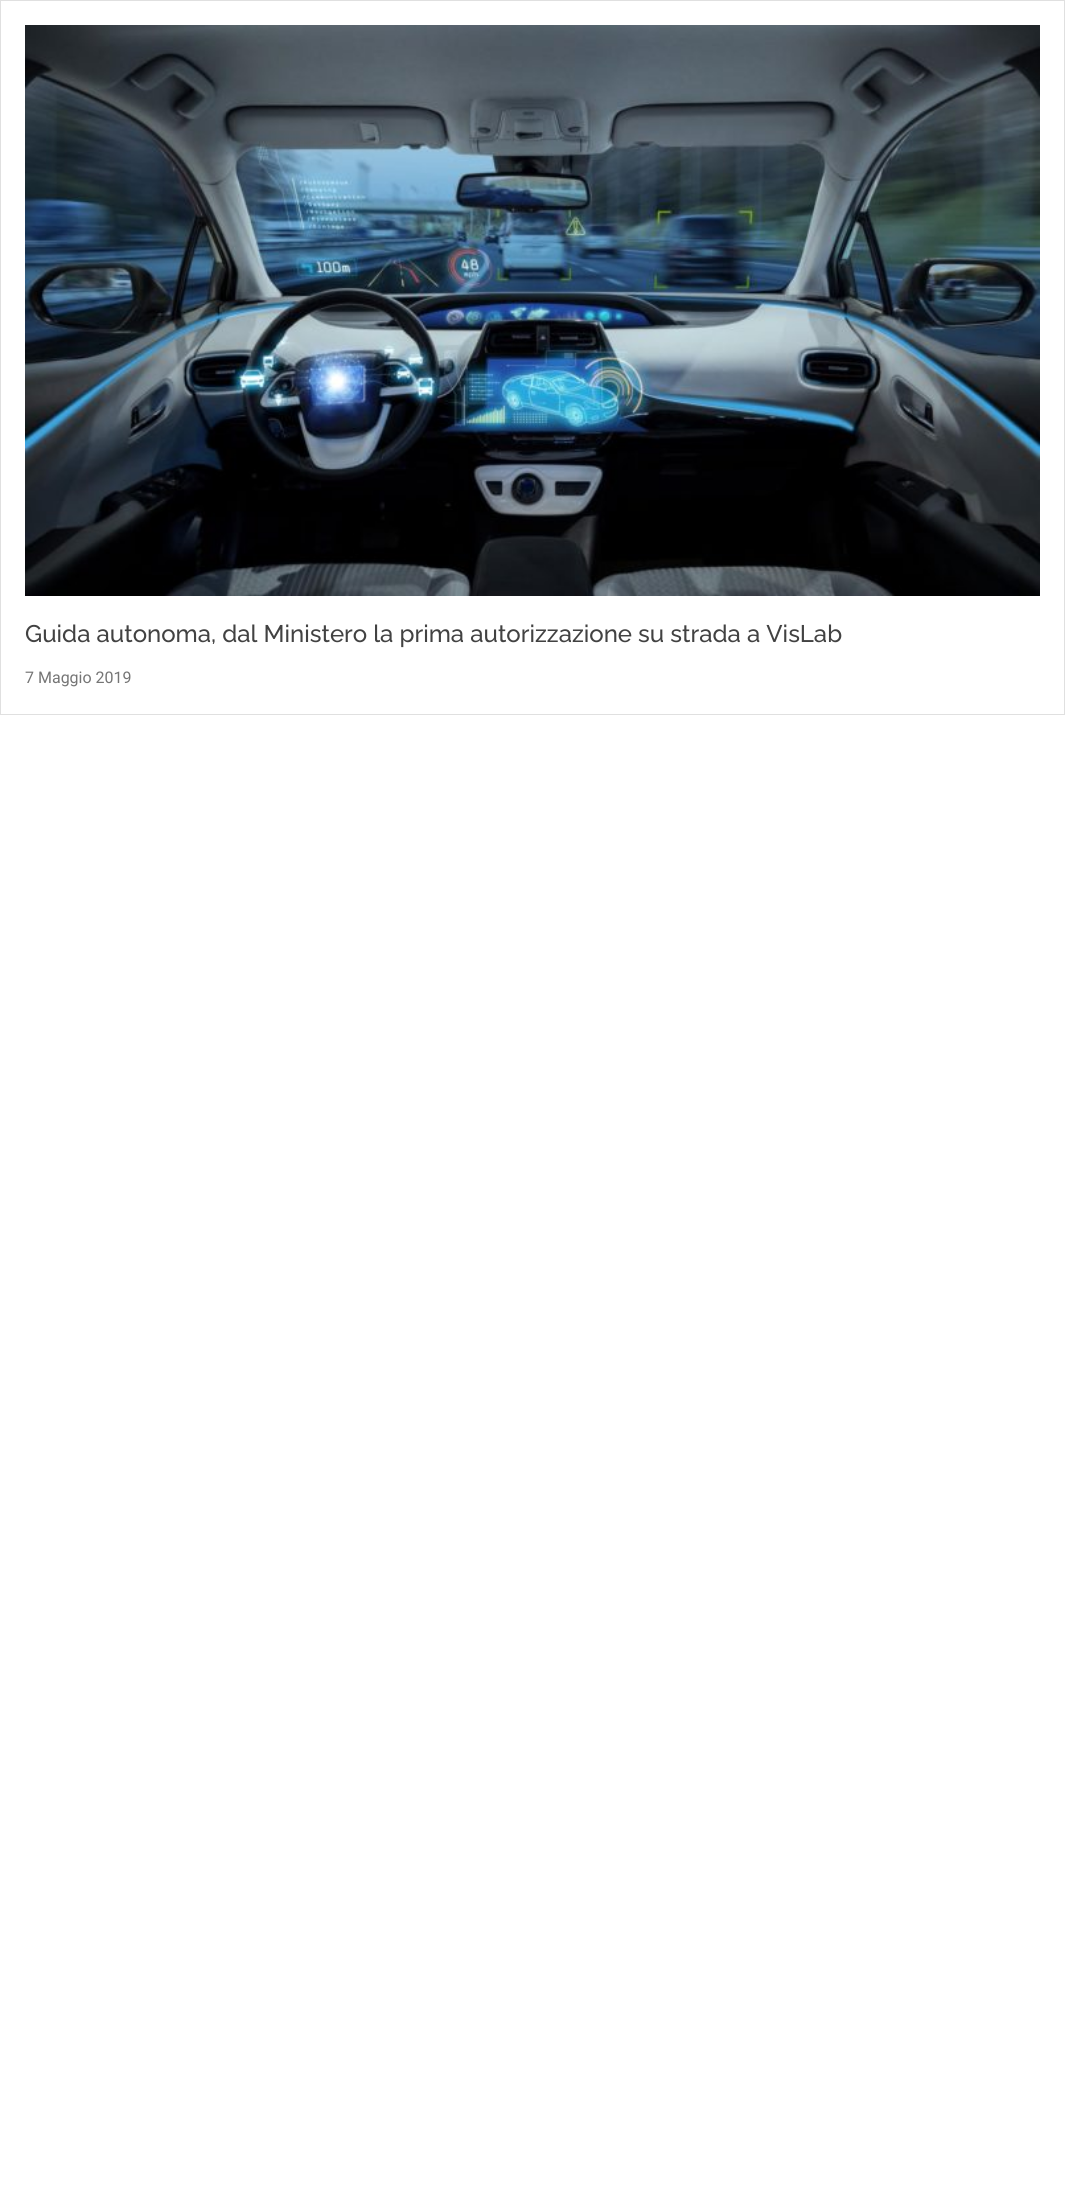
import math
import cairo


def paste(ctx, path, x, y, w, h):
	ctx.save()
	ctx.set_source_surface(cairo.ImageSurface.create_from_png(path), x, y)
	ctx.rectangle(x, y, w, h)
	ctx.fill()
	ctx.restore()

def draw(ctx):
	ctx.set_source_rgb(1, 1, 1)
	ctx.paint()
	ctx.rectangle(0.5, 0.5, 1064, 714)
	ctx.set_source_rgb(0.878, 0.878, 0.878)
	ctx.set_line_width(1)
	ctx.stroke()
	paste(ctx, 'media/1.png', 25, 25, 1015, 571)
	ctx.select_font_face('Raleway Medium')
	ctx.set_font_size(24)
	ctx.set_source_rgb(0.259, 0.259, 0.259)
	ctx.move_to(25, 642)
	ctx.show_text('Guida autonoma, dal Ministero la prima autorizzazione su strada a VisLab')
	ctx.select_font_face('Roboto')
	ctx.set_font_size(16)
	ctx.set_source_rgb(0.459, 0.459, 0.459)
	ctx.move_to(25, 683)
	ctx.show_text('7 Maggio 2019')


surface = cairo.ImageSurface(cairo.FORMAT_RGB24, 1065, 2193)
ctx = cairo.Context(surface)
options = cairo.FontOptions()
options.set_hint_metrics(cairo.HINT_METRICS_OFF)
options.set_hint_style(cairo.HINT_STYLE_NONE)
ctx.set_font_options(options)
ctx.set_miter_limit(4)
draw(ctx)
surface.write_to_png('image.png')
